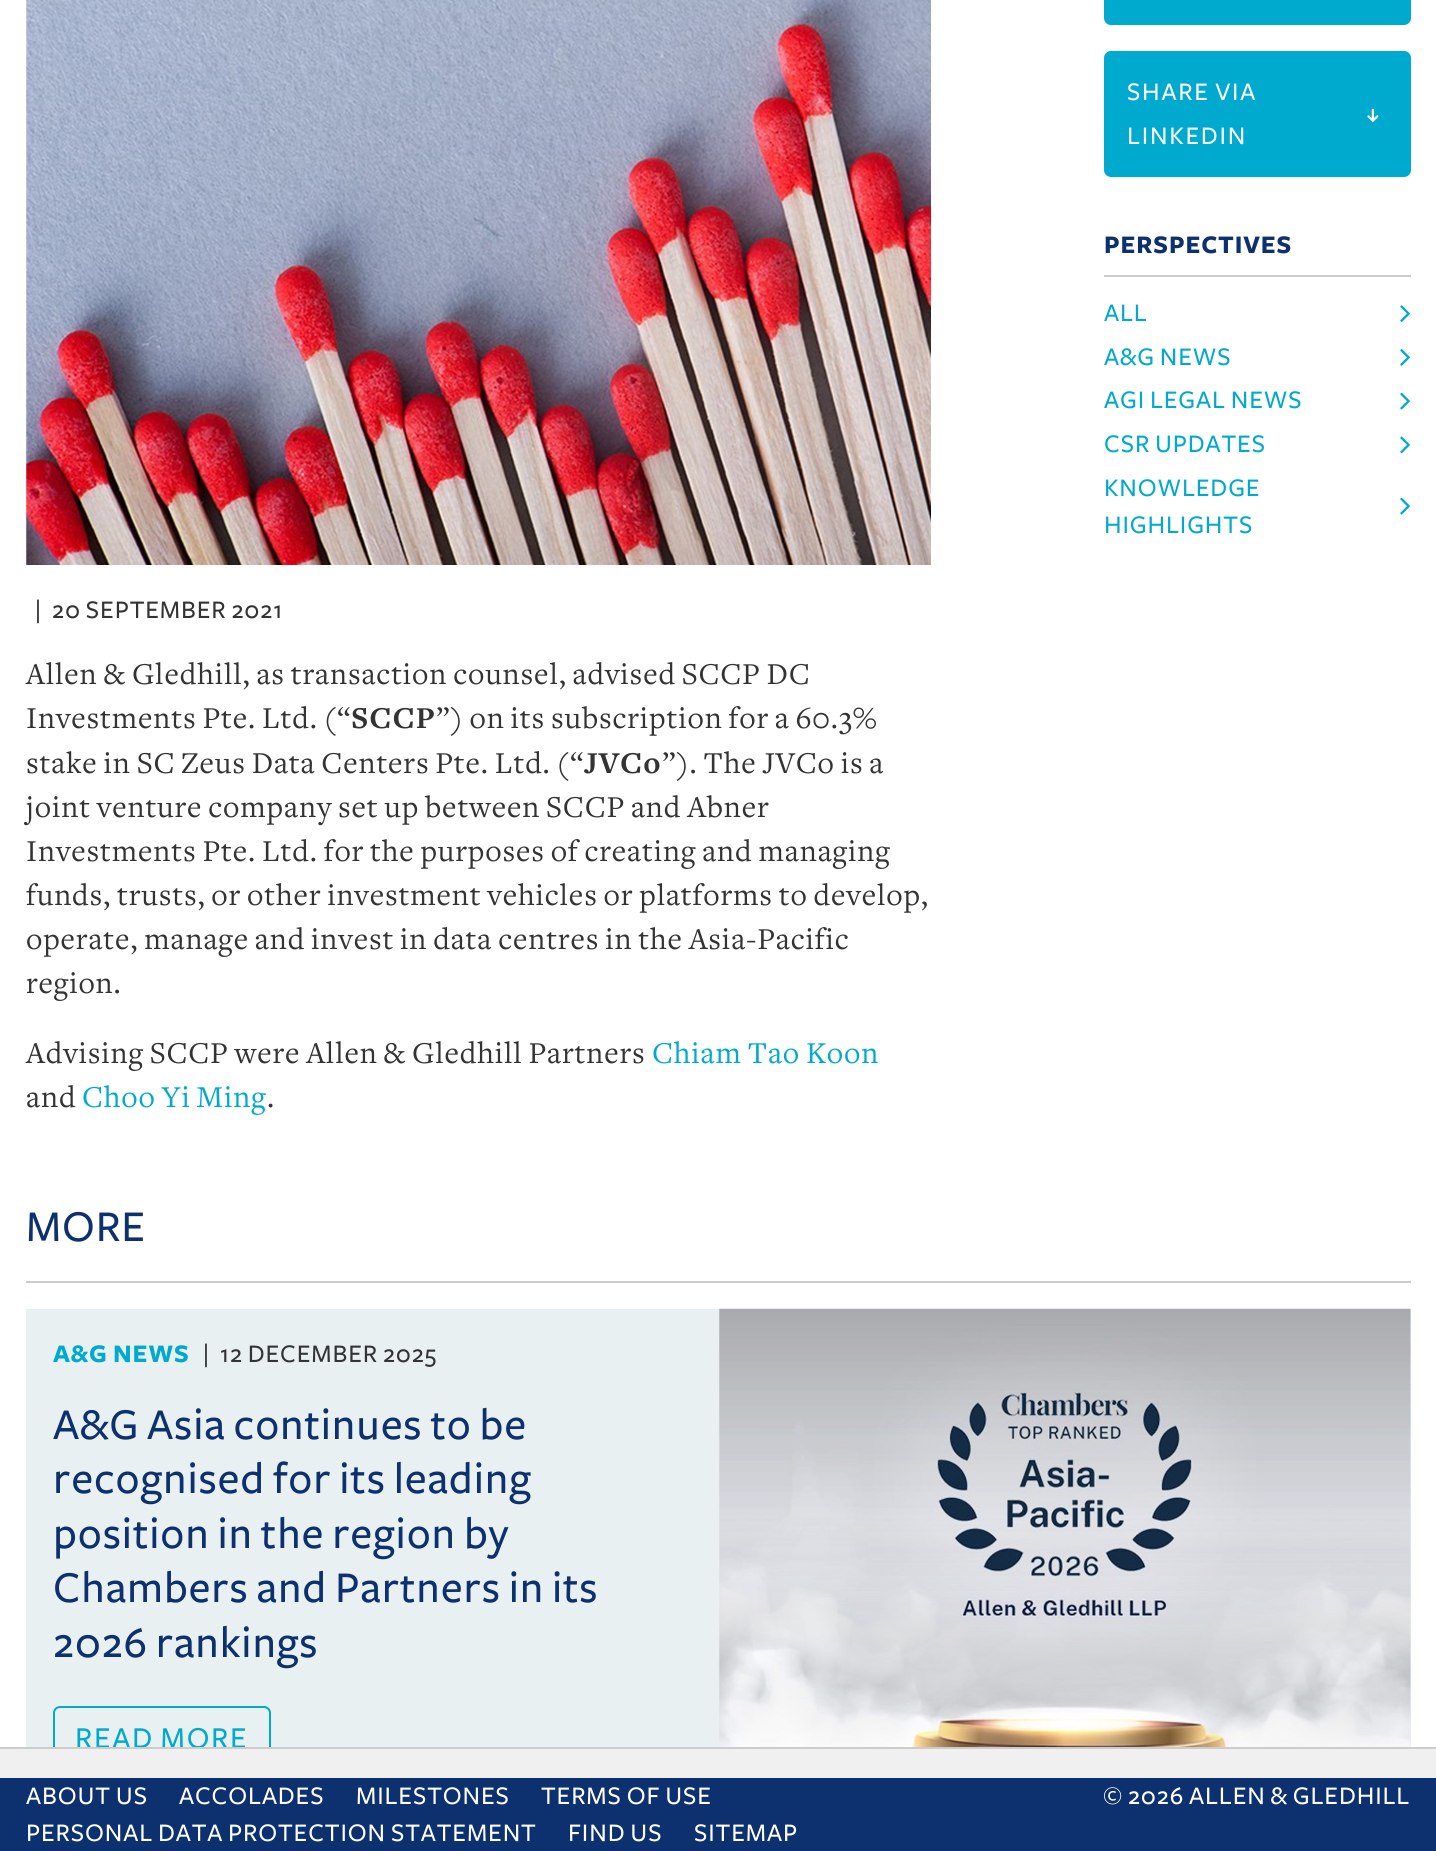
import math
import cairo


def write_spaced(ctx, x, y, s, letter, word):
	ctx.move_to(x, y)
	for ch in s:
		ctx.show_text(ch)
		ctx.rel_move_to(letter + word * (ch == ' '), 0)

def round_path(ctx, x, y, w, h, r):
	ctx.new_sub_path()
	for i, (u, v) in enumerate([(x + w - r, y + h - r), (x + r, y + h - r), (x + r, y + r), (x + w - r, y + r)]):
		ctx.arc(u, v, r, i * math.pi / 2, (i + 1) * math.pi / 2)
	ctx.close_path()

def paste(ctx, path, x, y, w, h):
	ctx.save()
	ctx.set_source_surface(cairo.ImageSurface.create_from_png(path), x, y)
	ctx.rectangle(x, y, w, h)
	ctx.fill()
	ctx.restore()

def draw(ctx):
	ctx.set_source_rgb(1, 1, 1)
	ctx.paint()
	ctx.set_source_rgb(0, 0.663, 0.808)
	round_path(ctx, 1105, -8, 305, 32, 6)
	ctx.fill_preserve()
	ctx.stroke()
	round_path(ctx, 1105, 52, 305, 124, 6)
	ctx.fill_preserve()
	ctx.stroke()
	ctx.select_font_face('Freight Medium')
	ctx.set_font_size(26.25)
	ctx.set_source_rgb(1, 1, 1)
	write_spaced(ctx, 1127, 100, 'SHARE VIA', 1.75, 0)
	paste(ctx, 'media/1.png', 1367, 108, 12, 15)
	write_spaced(ctx, 1127, 144, 'LINKEDIN', 1.75, 0)
	ctx.set_source_rgb(0.8, 0.8, 0.8)
	ctx.rectangle(1104, 275, 307, 2)
	ctx.fill()
	ctx.select_font_face('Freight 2', cairo.FONT_SLANT_NORMAL, cairo.FONT_WEIGHT_BOLD)
	ctx.set_source_rgb(0.051, 0.192, 0.431)
	write_spaced(ctx, 1104, 253, 'PERSPECTIVES', 0.88, 0)
	ctx.select_font_face('Freight Medium')
	ctx.set_source_rgb(0, 0.663, 0.808)
	write_spaced(ctx, 1104, 321, 'ALL', 0.88, 0)
	paste(ctx, 'media/2.png', 1400, 305, 10, 17)
	write_spaced(ctx, 1104, 365, 'A&G NEWS', 0.88, 0)
	paste(ctx, 'media/3.png', 1400, 349, 10, 17)
	write_spaced(ctx, 1104, 408, 'AGI LEGAL NEWS', 0.88, 0)
	paste(ctx, 'media/4.png', 1400, 392, 10, 18)
	write_spaced(ctx, 1104, 452, 'CSR UPDATES', 0.88, 0)
	paste(ctx, 'media/5.png', 1400, 436, 10, 18)
	write_spaced(ctx, 1104, 496, 'KNOWLEDGE', 0.88, 0)
	paste(ctx, 'media/4.png', 1400, 497, 10, 18)
	write_spaced(ctx, 1104, 533, 'HIGHLIGHTS', 0.88, 0)
	paste(ctx, 'media/6.png', 26, 0, 905, 565)
	ctx.set_source_rgb(0.2, 0.2, 0.2)
	write_spaced(ctx, 35, 618, '|', 0.88, 0)
	write_spaced(ctx, 52, 618, '20 SEPTEMBER 2021', 0.88, 0)
	ctx.select_font_face('Freight')
	ctx.set_font_size(31.5)
	write_spaced(ctx, 26, 684, 'Allen & Gledhill, as transaction counsel, advised SCCP DC', 0.88, 0)
	write_spaced(ctx, 26, 728, 'Investments Pte. Ltd. (“', 0.88, 0)
	ctx.select_font_face('Freight', cairo.FONT_SLANT_NORMAL, cairo.FONT_WEIGHT_BOLD)
	write_spaced(ctx, 351, 728, 'SCCP', 0.88, 0)
	ctx.select_font_face('Freight')
	write_spaced(ctx, 436, 728, '”) on its subscription for a 60.3%', 0.88, 0)
	write_spaced(ctx, 26, 773, 'stake in SC Zeus Data Centers Pte. Ltd. (“', 0.88, 0)
	ctx.select_font_face('Freight', cairo.FONT_SLANT_NORMAL, cairo.FONT_WEIGHT_BOLD)
	write_spaced(ctx, 584, 773, 'JVCo', 0.88, 0)
	ctx.select_font_face('Freight')
	for x, y, s in [
		(662, 773, '”). The JVCo is a'),
		(26, 817, 'joint venture company set up between SCCP and Abner'),
		(26, 861, 'Investments Pte. Ltd. for the purposes of creating and managing'),
		(26, 905, 'funds, trusts, or other investment vehicles or platforms to develop,'),
		(26, 949, 'operate, manage and invest in data centres in the Asia-Pacific'),
		(26, 993, 'region.'),
		(26, 1063, 'Advising SCCP were Allen & Gledhill Partners'),
	]:
		write_spaced(ctx, x, y, s, 0.88, 0)
	ctx.set_source_rgb(0, 0.663, 0.808)
	write_spaced(ctx, 652, 1063, 'Chiam Tao Koon', 0.88, 0)
	ctx.set_source_rgb(0.2, 0.2, 0.2)
	write_spaced(ctx, 26, 1107, 'and', 0.88, 0)
	ctx.set_source_rgb(0, 0.663, 0.808)
	write_spaced(ctx, 82, 1107, 'Choo Yi Ming', 0.88, 0)
	ctx.set_source_rgb(0.2, 0.2, 0.2)
	write_spaced(ctx, 267, 1107, '.', 0.88, 0)
	ctx.set_source_rgb(0.8, 0.8, 0.8)
	ctx.rectangle(26, 1281, 1385, 2)
	ctx.fill()
	ctx.select_font_face('Freight Medium')
	ctx.set_font_size(45.5)
	ctx.set_source_rgb(0.051, 0.192, 0.431)
	write_spaced(ctx, 26, 1241, 'MORE', 0.88, 0)
	ctx.set_source_rgb(0.914, 0.941, 0.949)
	ctx.rectangle(26, 1309, 1385, 438)
	ctx.fill()
	ctx.select_font_face('Freight 2', cairo.FONT_SLANT_NORMAL, cairo.FONT_WEIGHT_BOLD)
	ctx.set_font_size(26.25)
	ctx.set_source_rgb(0, 0.663, 0.808)
	write_spaced(ctx, 53, 1362, 'A&G NEWS', 0.88, 0)
	ctx.select_font_face('Freight Medium')
	ctx.set_source_rgb(0.2, 0.2, 0.2)
	write_spaced(ctx, 203, 1362, '|', 0.88, 0)
	write_spaced(ctx, 220, 1362, '12 DECEMBER 2025', 0.88, 0)
	ctx.set_font_size(45.5)
	ctx.set_source_rgb(0.051, 0.192, 0.431)
	for x, y, s in [
		(53, 1439, 'A&G Asia continues to be'),
		(53, 1493, 'recognised for its leading'),
		(53, 1548, 'position in the region by'),
		(53, 1602, 'Chambers and Partners in its'),
		(53, 1657, '2026 rankings'),
	]:
		write_spaced(ctx, x, y, s, 0.88, 0)
	round_path(ctx, 54, 1707, 216, 67, 6)
	ctx.set_source_rgb(0, 0.663, 0.808)
	ctx.stroke()
	ctx.set_font_size(31.5)
	write_spaced(ctx, 75, 1748, 'READ MORE', 1.75, 0)
	paste(ctx, 'media/7.png', 719, 1308, 692, 439)
	ctx.set_source_rgb(0.051, 0.192, 0.431)
	ctx.rectangle(0, 1778, 1436, 73)
	ctx.fill()
	ctx.set_font_size(26.25)
	ctx.set_source_rgb(1, 1, 1)
	for x, y, s in [
		(26, 1804, 'ABOUT US'),
		(179, 1804, 'ACCOLADES'),
		(356, 1804, 'MILESTONES'),
		(541, 1804, 'TERMS OF USE'),
		(26, 1841, 'PERSONAL DATA PROTECTION STATEMENT'),
		(568, 1841, 'FIND US'),
		(694, 1841, 'SITEMAP'),
		(1103, 1804, '© 2026 ALLEN & GLEDHILL'),
	]:
		write_spaced(ctx, x, y, s, 0.88, 0)
	ctx.set_source_rgb(0.941, 0.941, 0.941)
	ctx.rectangle(0, 1749, 1436, 29)
	ctx.fill()
	ctx.set_source_rgb(0.8, 0.8, 0.8)
	ctx.rectangle(0, 1747, 1436, 2)
	ctx.fill()


surface = cairo.ImageSurface(cairo.FORMAT_RGB24, 1436, 1851)
ctx = cairo.Context(surface)
options = cairo.FontOptions()
options.set_hint_metrics(cairo.HINT_METRICS_OFF)
options.set_hint_style(cairo.HINT_STYLE_NONE)
ctx.set_font_options(options)
ctx.set_miter_limit(4)
draw(ctx)
surface.write_to_png('image.png')
